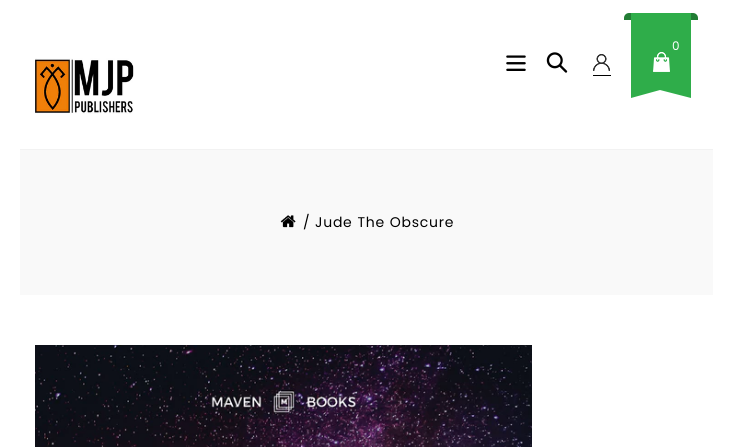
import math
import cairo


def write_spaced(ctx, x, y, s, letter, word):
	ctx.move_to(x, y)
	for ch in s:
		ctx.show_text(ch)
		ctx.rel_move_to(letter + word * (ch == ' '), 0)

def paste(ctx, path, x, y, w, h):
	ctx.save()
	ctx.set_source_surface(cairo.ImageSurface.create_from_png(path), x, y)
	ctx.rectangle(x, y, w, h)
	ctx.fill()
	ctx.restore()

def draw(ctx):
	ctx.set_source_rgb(1, 1, 1)
	ctx.paint()
	ctx.set_source_rgb(0.949, 0.949, 0.949)
	ctx.rectangle(20, 149, 693, 1)
	ctx.fill()
	paste(ctx, 'media/1.png', 624, 13, 74, 85)
	ctx.select_font_face('Poppins')
	ctx.set_font_size(12)
	ctx.set_source_rgb(1, 1, 1)
	write_spaced(ctx, 672, 50, '0', 0.75, 0)
	paste(ctx, 'media/2.png', 653, 52, 17, 20)
	paste(ctx, 'media/3.png', 506, 55, 20, 16)
	paste(ctx, 'media/4.png', 546, 52, 22, 21)
	paste(ctx, 'media/5.png', 593, 54, 17, 17)
	ctx.set_source_rgb(0, 0, 0)
	ctx.rectangle(593, 75, 18, 1)
	ctx.fill()
	paste(ctx, 'media/6.png', 35, 58, 99, 56)
	ctx.set_source_rgb(0.973, 0.973, 0.973)
	ctx.rectangle(20, 150, 693, 145)
	ctx.fill()
	paste(ctx, 'media/7.png', 280, 215, 16, 13)
	ctx.set_font_size(14)
	ctx.set_source_rgb(0, 0, 0)
	write_spaced(ctx, 303, 227, '/', 0.75, 0)
	write_spaced(ctx, 315, 227, 'Jude The Obscure', 0.75, 0)
	paste(ctx, 'media/8.png', 35, 345, 497, 102)


surface = cairo.ImageSurface(cairo.FORMAT_RGB24, 733, 447)
ctx = cairo.Context(surface)
options = cairo.FontOptions()
options.set_hint_metrics(cairo.HINT_METRICS_OFF)
options.set_hint_style(cairo.HINT_STYLE_NONE)
ctx.set_font_options(options)
ctx.set_miter_limit(4)
draw(ctx)
surface.write_to_png('image.png')
